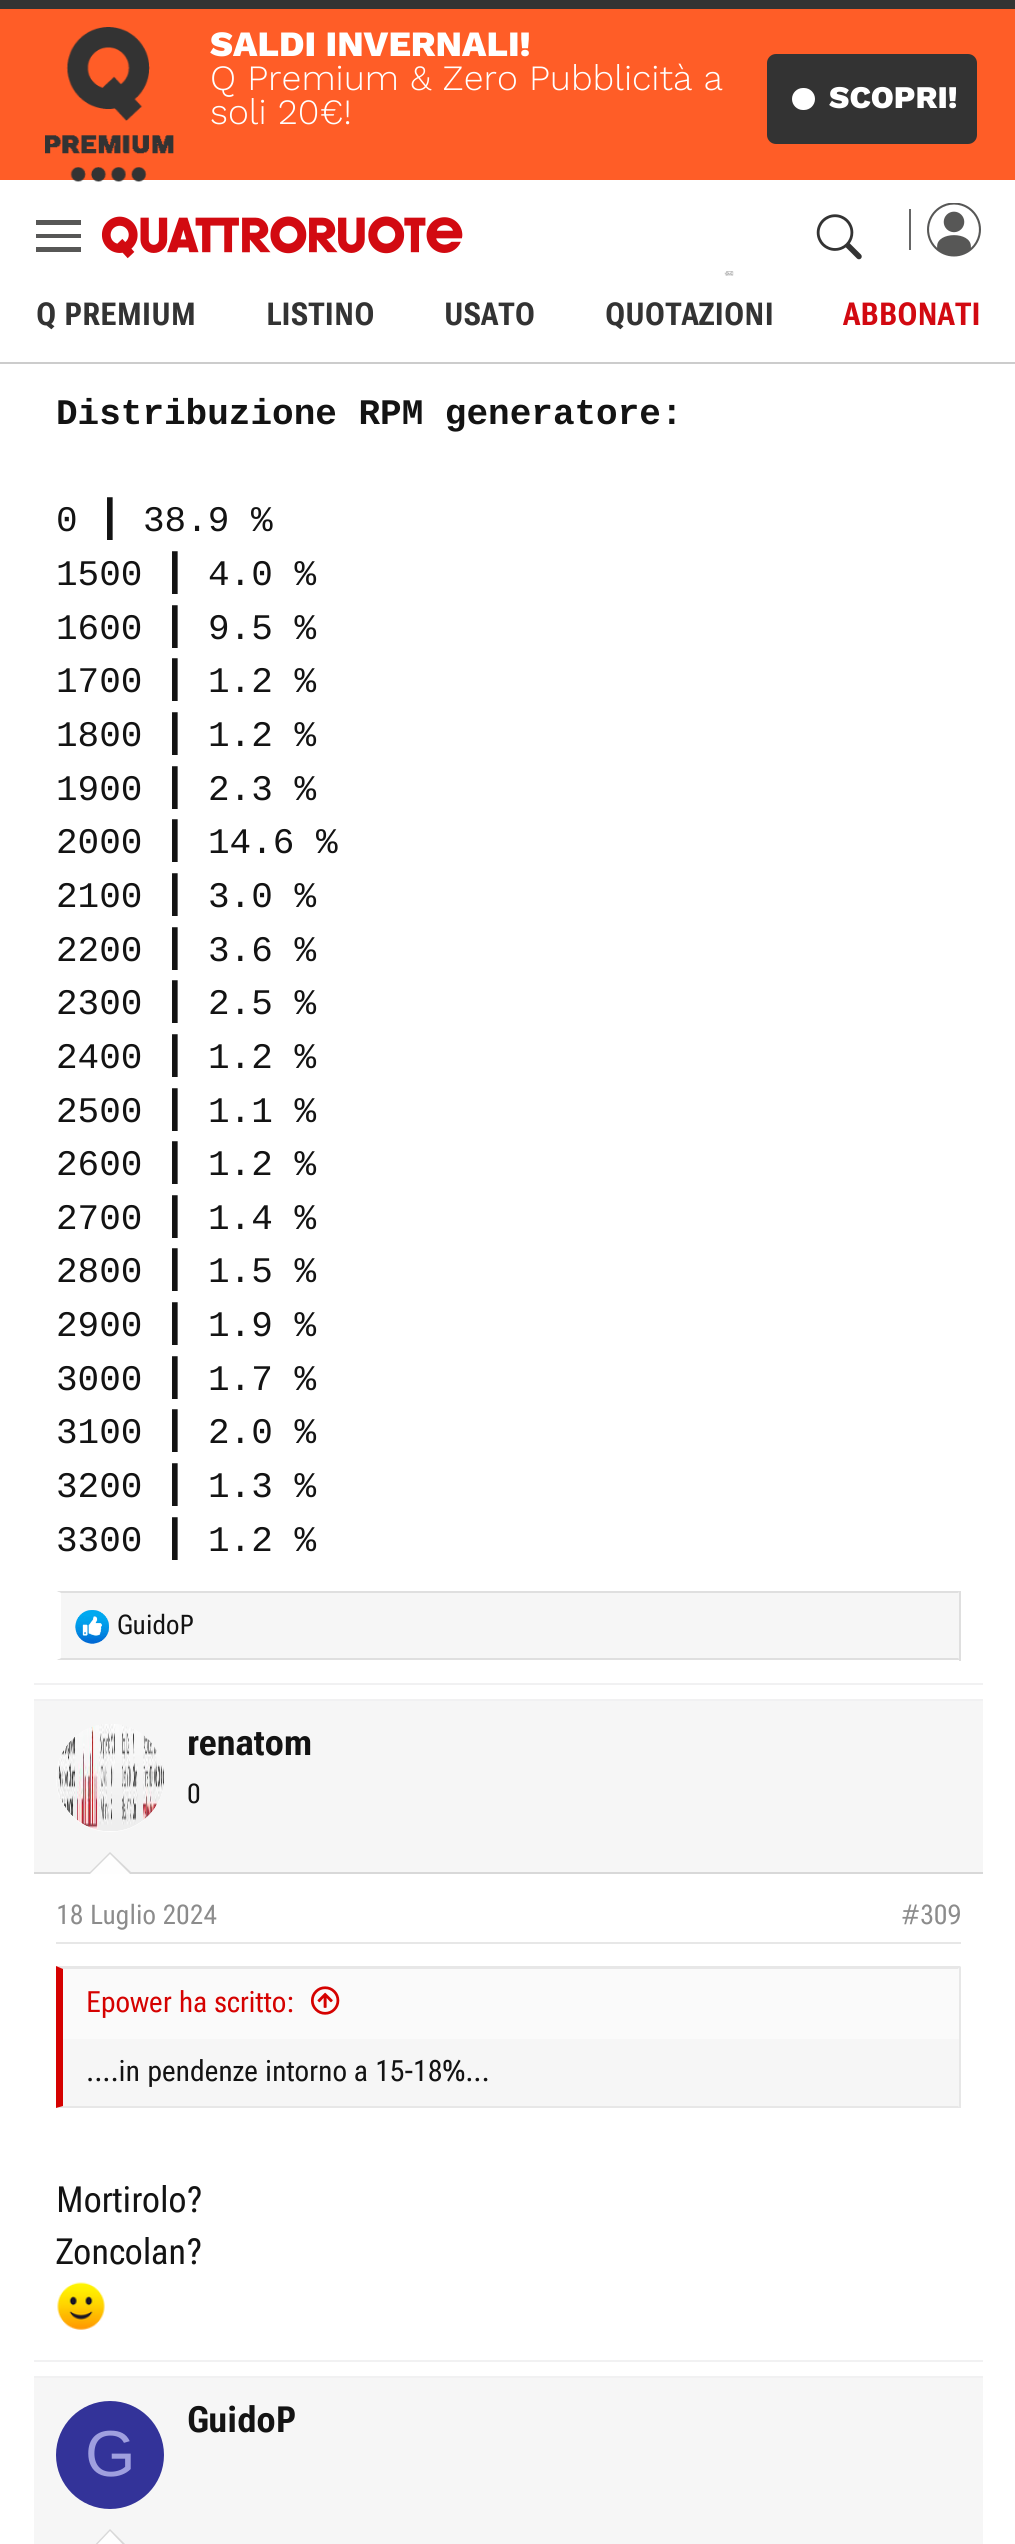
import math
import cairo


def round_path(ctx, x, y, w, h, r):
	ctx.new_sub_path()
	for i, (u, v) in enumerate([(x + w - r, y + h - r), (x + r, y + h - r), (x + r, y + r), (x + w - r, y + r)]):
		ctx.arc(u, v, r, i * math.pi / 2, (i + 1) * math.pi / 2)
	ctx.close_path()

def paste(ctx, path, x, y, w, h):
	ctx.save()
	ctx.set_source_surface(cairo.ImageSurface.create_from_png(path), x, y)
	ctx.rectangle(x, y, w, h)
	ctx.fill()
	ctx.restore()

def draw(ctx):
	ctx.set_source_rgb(1, 1, 1)
	ctx.paint()
	ctx.set_source_rgb(0.8, 0.8, 0.8)
	ctx.rectangle(0, 362, 1015, 2)
	ctx.fill()
	ctx.set_source_rgb(1, 0.365, 0.153)
	ctx.rectangle(0, 9, 1015, 171)
	ctx.fill()
	ctx.set_source_rgb(0.2, 0.2, 0.2)
	ctx.rectangle(0, 0, 1015, 9)
	ctx.fill()
	paste(ctx, 'media/1.png', 45, 27, 129, 155)
	ctx.select_font_face('Work Sans ExtraBold')
	ctx.set_font_size(35.6)
	ctx.set_source_rgb(1, 1, 1)
	ctx.move_to(210, 56)
	ctx.show_text('SALDI INVERNALI!')
	ctx.select_font_face('Work Sans Light')
	ctx.move_to(210, 90)
	ctx.show_text('Q Premium & Zero Pubblicità a')
	ctx.move_to(210, 124)
	ctx.show_text('soli 20€!')
	ctx.set_source_rgb(0.2, 0.2, 0.2)
	round_path(ctx, 767, 54, 210, 90, 9)
	ctx.fill()
	ctx.set_source_rgb(1, 1, 1)
	round_path(ctx, 792, 88, 23, 22, 11)
	ctx.fill()
	ctx.select_font_face('Work Sans ExtraBold')
	ctx.set_font_size(31.5)
	ctx.move_to(829, 108)
	ctx.show_text('SCOPRI!')
	ctx.set_source_rgb(0.341, 0.341, 0.337)
	ctx.new_path()
	ctx.move_to(36, 220)
	ctx.line_to(81, 220)
	ctx.line_to(81, 225)
	ctx.line_to(36, 225)
	ctx.close_path()
	ctx.move_to(36, 234)
	ctx.line_to(81, 234)
	ctx.line_to(81, 238)
	ctx.line_to(36, 238)
	ctx.close_path()
	ctx.move_to(36, 247)
	ctx.line_to(81, 247)
	ctx.line_to(81, 252)
	ctx.line_to(36, 252)
	ctx.close_path()
	ctx.fill()
	paste(ctx, 'media/2.png', 101, 216, 362, 43)
	paste(ctx, 'media/3.png', 816, 214, 46, 46)
	ctx.set_source_rgb(0.4, 0.4, 0.4)
	ctx.rectangle(909, 209, 2, 41)
	ctx.fill()
	paste(ctx, 'media/4.png', 927, 203, 54, 54)
	paste(ctx, 'media/5.png', 724, 271, 10, 5)
	ctx.select_font_face('Roboto Flex', cairo.FONT_SLANT_NORMAL, cairo.FONT_WEIGHT_BOLD)
	ctx.set_source_rgb(0.2, 0.2, 0.2)
	for x, y, s in [
		(36, 325, 'Q PREMIUM'),
		(266, 325, 'LISTINO'),
		(444, 325, 'USATO'),
		(605, 325, 'QUOTAZIONI'),
	]:
		ctx.move_to(x, y)
		ctx.show_text(s)
	ctx.set_source_rgb(0.824, 0.039, 0.067)
	ctx.move_to(843, 325)
	ctx.show_text('ABBONATI')
	ctx.set_source_rgb(0.945, 0.945, 0.949)
	ctx.rectangle(34, 1683, 949, 2)
	ctx.fill()
	ctx.select_font_face('Liberation Mono', cairo.FONT_SLANT_NORMAL, cairo.FONT_WEIGHT_BOLD)
	ctx.set_font_size(36)
	ctx.set_source_rgb(0.078, 0.078, 0.078)
	ctx.move_to(56, 424)
	ctx.show_text('Distribuzione RPM generatore:')
	ctx.select_font_face('Liberation Mono')
	ctx.move_to(56, 531)
	ctx.show_text('0')
	ctx.select_font_face('DejaVu Sans')
	ctx.move_to(99, 531)
	ctx.show_text('┃')
	ctx.select_font_face('Liberation Mono')
	ctx.move_to(143, 531)
	ctx.show_text('38.9 %')
	ctx.move_to(56, 585)
	ctx.show_text('1500')
	ctx.select_font_face('DejaVu Sans')
	ctx.move_to(164, 585)
	ctx.show_text('┃')
	ctx.select_font_face('Liberation Mono')
	ctx.move_to(208, 585)
	ctx.show_text('4.0 %')
	ctx.move_to(56, 639)
	ctx.show_text('1600')
	ctx.select_font_face('DejaVu Sans')
	ctx.move_to(164, 639)
	ctx.show_text('┃')
	ctx.select_font_face('Liberation Mono')
	ctx.move_to(208, 639)
	ctx.show_text('9.5 %')
	ctx.move_to(56, 692)
	ctx.show_text('1700')
	ctx.select_font_face('DejaVu Sans')
	ctx.move_to(164, 692)
	ctx.show_text('┃')
	ctx.select_font_face('Liberation Mono')
	ctx.move_to(208, 692)
	ctx.show_text('1.2 %')
	ctx.move_to(56, 746)
	ctx.show_text('1800')
	ctx.select_font_face('DejaVu Sans')
	ctx.move_to(164, 746)
	ctx.show_text('┃')
	ctx.select_font_face('Liberation Mono')
	ctx.move_to(208, 746)
	ctx.show_text('1.2 %')
	ctx.move_to(56, 800)
	ctx.show_text('1900')
	ctx.select_font_face('DejaVu Sans')
	ctx.move_to(164, 800)
	ctx.show_text('┃')
	ctx.select_font_face('Liberation Mono')
	ctx.move_to(208, 800)
	ctx.show_text('2.3 %')
	ctx.move_to(56, 853)
	ctx.show_text('2000')
	ctx.select_font_face('DejaVu Sans')
	ctx.move_to(164, 853)
	ctx.show_text('┃')
	ctx.select_font_face('Liberation Mono')
	ctx.move_to(208, 853)
	ctx.show_text('14.6 %')
	ctx.move_to(56, 907)
	ctx.show_text('2100')
	ctx.select_font_face('DejaVu Sans')
	ctx.move_to(164, 907)
	ctx.show_text('┃')
	ctx.select_font_face('Liberation Mono')
	ctx.move_to(208, 907)
	ctx.show_text('3.0 %')
	ctx.move_to(56, 961)
	ctx.show_text('2200')
	ctx.select_font_face('DejaVu Sans')
	ctx.move_to(164, 961)
	ctx.show_text('┃')
	ctx.select_font_face('Liberation Mono')
	ctx.move_to(208, 961)
	ctx.show_text('3.6 %')
	ctx.move_to(56, 1014)
	ctx.show_text('2300')
	ctx.select_font_face('DejaVu Sans')
	ctx.move_to(164, 1014)
	ctx.show_text('┃')
	ctx.select_font_face('Liberation Mono')
	ctx.move_to(208, 1014)
	ctx.show_text('2.5 %')
	ctx.move_to(56, 1068)
	ctx.show_text('2400')
	ctx.select_font_face('DejaVu Sans')
	ctx.move_to(164, 1068)
	ctx.show_text('┃')
	ctx.select_font_face('Liberation Mono')
	ctx.move_to(208, 1068)
	ctx.show_text('1.2 %')
	ctx.move_to(56, 1122)
	ctx.show_text('2500')
	ctx.select_font_face('DejaVu Sans')
	ctx.move_to(164, 1122)
	ctx.show_text('┃')
	ctx.select_font_face('Liberation Mono')
	ctx.move_to(208, 1122)
	ctx.show_text('1.1 %')
	ctx.move_to(56, 1175)
	ctx.show_text('2600')
	ctx.select_font_face('DejaVu Sans')
	ctx.move_to(164, 1175)
	ctx.show_text('┃')
	ctx.select_font_face('Liberation Mono')
	ctx.move_to(208, 1175)
	ctx.show_text('1.2 %')
	ctx.move_to(56, 1229)
	ctx.show_text('2700')
	ctx.select_font_face('DejaVu Sans')
	ctx.move_to(164, 1229)
	ctx.show_text('┃')
	ctx.select_font_face('Liberation Mono')
	ctx.move_to(208, 1229)
	ctx.show_text('1.4 %')
	ctx.move_to(56, 1282)
	ctx.show_text('2800')
	ctx.select_font_face('DejaVu Sans')
	ctx.move_to(164, 1282)
	ctx.show_text('┃')
	ctx.select_font_face('Liberation Mono')
	ctx.move_to(208, 1282)
	ctx.show_text('1.5 %')
	ctx.move_to(56, 1336)
	ctx.show_text('2900')
	ctx.select_font_face('DejaVu Sans')
	ctx.move_to(164, 1336)
	ctx.show_text('┃')
	ctx.select_font_face('Liberation Mono')
	ctx.move_to(208, 1336)
	ctx.show_text('1.9 %')
	ctx.move_to(56, 1390)
	ctx.show_text('3000')
	ctx.select_font_face('DejaVu Sans')
	ctx.move_to(164, 1390)
	ctx.show_text('┃')
	ctx.select_font_face('Liberation Mono')
	ctx.move_to(208, 1390)
	ctx.show_text('1.7 %')
	ctx.move_to(56, 1443)
	ctx.show_text('3100')
	ctx.select_font_face('DejaVu Sans')
	ctx.move_to(164, 1443)
	ctx.show_text('┃')
	ctx.select_font_face('Liberation Mono')
	ctx.move_to(208, 1443)
	ctx.show_text('2.0 %')
	ctx.move_to(56, 1497)
	ctx.show_text('3200')
	ctx.select_font_face('DejaVu Sans')
	ctx.move_to(164, 1497)
	ctx.show_text('┃')
	ctx.select_font_face('Liberation Mono')
	ctx.move_to(208, 1497)
	ctx.show_text('1.3 %')
	ctx.move_to(56, 1551)
	ctx.show_text('3300')
	ctx.select_font_face('DejaVu Sans')
	ctx.move_to(164, 1551)
	ctx.show_text('┃')
	ctx.select_font_face('Liberation Mono')
	ctx.move_to(208, 1551)
	ctx.show_text('1.2 %')
	ctx.set_source_rgb(0.961, 0.961, 0.961)
	ctx.rectangle(61, 1593, 898, 65)
	ctx.fill()
	ctx.set_source_rgb(0.875, 0.875, 0.875)
	ctx.new_path()
	ctx.move_to(56, 1591)
	ctx.line_to(961, 1591)
	ctx.line_to(958, 1593)
	ctx.line_to(61, 1593)
	ctx.close_path()
	ctx.fill()
	ctx.rectangle(959, 1591, 2, 70)
	ctx.fill()
	ctx.new_path()
	ctx.move_to(961, 1660)
	ctx.line_to(56, 1660)
	ctx.line_to(61, 1658)
	ctx.line_to(958, 1658)
	ctx.close_path()
	ctx.fill()
	ctx.set_source_rgb(1, 1, 1)
	ctx.new_path()
	ctx.move_to(56, 1660)
	ctx.line_to(56, 1591)
	ctx.line_to(61, 1593)
	ctx.line_to(61, 1658)
	ctx.close_path()
	ctx.fill()
	paste(ctx, 'media/6.png', 75, 1610, 34, 34)
	ctx.select_font_face('Roboto Flex')
	ctx.set_font_size(27)
	ctx.set_source_rgb(0.078, 0.078, 0.078)
	ctx.move_to(117, 1634)
	ctx.show_text('GuidoP')
	ctx.set_source_rgb(0.945, 0.945, 0.949)
	ctx.rectangle(34, 1699, 949, 2)
	ctx.rectangle(34, 2360, 949, 2)
	ctx.fill()
	ctx.set_source_rgb(0.961, 0.961, 0.961)
	ctx.rectangle(34, 1701, 949, 171)
	ctx.fill()
	ctx.set_source_rgb(0.847, 0.847, 0.847)
	ctx.rectangle(34, 1872, 949, 2)
	ctx.fill()
	ctx.set_source_rgb(0.996, 0.996, 0.996)
	ctx.arc(110, 1778, 54, 0, 2 * math.pi)
	ctx.fill()
	paste(ctx, 'media/7.png', 56, 1724, 108, 107)
	ctx.select_font_face('Roboto Flex', cairo.FONT_SLANT_NORMAL, cairo.FONT_WEIGHT_BOLD)
	ctx.set_font_size(36)
	ctx.set_source_rgb(0.078, 0.078, 0.078)
	ctx.move_to(187, 1755)
	ctx.show_text('renatom')
	ctx.select_font_face('Roboto Flex')
	ctx.set_font_size(27)
	ctx.move_to(187, 1803)
	ctx.show_text('0')
	ctx.set_source_rgb(0.847, 0.847, 0.847)
	ctx.new_path()
	ctx.move_to(133, 1874)
	ctx.line_to(88, 1874)
	ctx.line_to(110, 1852)
	ctx.close_path()
	ctx.fill()
	ctx.set_source_rgb(0.996, 0.996, 0.996)
	ctx.new_path()
	ctx.move_to(130, 1874)
	ctx.line_to(90, 1874)
	ctx.line_to(110, 1854)
	ctx.close_path()
	ctx.fill()
	ctx.set_source_rgb(0.906, 0.906, 0.906)
	ctx.rectangle(56, 1942, 905, 2)
	ctx.fill()
	ctx.set_source_rgb(0.549, 0.549, 0.549)
	ctx.move_to(56, 1924)
	ctx.show_text('18 Luglio 2024')
	ctx.move_to(901, 1924)
	ctx.show_text('#309')
	ctx.set_source_rgb(0.961, 0.961, 0.961)
	ctx.rectangle(63, 2039, 896, 67)
	ctx.fill()
	ctx.set_source_rgb(0.906, 0.906, 0.906)
	ctx.new_path()
	ctx.move_to(56, 1966)
	ctx.line_to(961, 1966)
	ctx.line_to(958, 1969)
	ctx.line_to(63, 1969)
	ctx.close_path()
	ctx.fill()
	ctx.rectangle(959, 1967, 2, 141)
	ctx.fill()
	ctx.new_path()
	ctx.move_to(961, 2108)
	ctx.line_to(56, 2108)
	ctx.line_to(63, 2106)
	ctx.line_to(958, 2106)
	ctx.close_path()
	ctx.fill()
	ctx.set_source_rgb(0.835, 0.004, 0)
	ctx.new_path()
	ctx.move_to(56, 2108)
	ctx.line_to(56, 1966)
	ctx.line_to(63, 1969)
	ctx.line_to(63, 2106)
	ctx.close_path()
	ctx.fill()
	ctx.set_source_rgb(0.98, 0.98, 0.98)
	ctx.rectangle(63, 1969, 896, 70)
	ctx.fill()
	ctx.set_font_size(29.25)
	ctx.set_source_rgb(0.835, 0.004, 0)
	ctx.move_to(86, 2012)
	ctx.show_text('Epower ha scritto:')
	paste(ctx, 'media/8.png', 311, 1986, 29, 29)
	ctx.set_source_rgb(0.078, 0.078, 0.078)
	ctx.move_to(86, 2081)
	ctx.show_text('....in pendenze intorno a 15-18%...')
	ctx.set_font_size(36)
	ctx.move_to(56, 2212)
	ctx.show_text('Mortirolo?')
	ctx.move_to(56, 2264)
	ctx.show_text('Zoncolan?')
	paste(ctx, 'media/9.png', 57, 2282, 48, 48)
	ctx.set_source_rgb(0.945, 0.945, 0.949)
	ctx.rectangle(34, 2376, 949, 2)
	ctx.fill()
	ctx.set_source_rgb(0.961, 0.961, 0.961)
	ctx.rectangle(34, 2378, 949, 166)
	ctx.fill()
	ctx.select_font_face('Roboto Flex', cairo.FONT_SLANT_NORMAL, cairo.FONT_WEIGHT_BOLD)
	ctx.set_source_rgb(0.078, 0.078, 0.078)
	ctx.move_to(187, 2432)
	ctx.show_text('GuidoP')
	ctx.set_source_rgb(0.2, 0.2, 0.6)
	ctx.new_path()
	ctx.arc(110, 2455, 54, 0, 2 * math.pi)
	ctx.fill()
	ctx.select_font_face('Liberation Sans')
	ctx.set_font_size(65)
	ctx.set_source_rgb(0.624, 0.624, 0.875)
	ctx.move_to(85, 2476)
	ctx.show_text('G')
	ctx.set_source_rgb(0.847, 0.847, 0.847)
	ctx.new_path()
	ctx.move_to(133, 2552)
	ctx.line_to(88, 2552)
	ctx.line_to(110, 2529)
	ctx.close_path()
	ctx.fill()
	ctx.set_source_rgb(0.996, 0.996, 0.996)
	ctx.new_path()
	ctx.move_to(130, 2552)
	ctx.line_to(90, 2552)
	ctx.line_to(110, 2531)
	ctx.close_path()
	ctx.fill()


surface = cairo.ImageSurface(cairo.FORMAT_RGB24, 1015, 2544)
ctx = cairo.Context(surface)
options = cairo.FontOptions()
options.set_hint_metrics(cairo.HINT_METRICS_OFF)
options.set_hint_style(cairo.HINT_STYLE_NONE)
ctx.set_font_options(options)
ctx.set_miter_limit(4)
draw(ctx)
surface.write_to_png('image.png')
